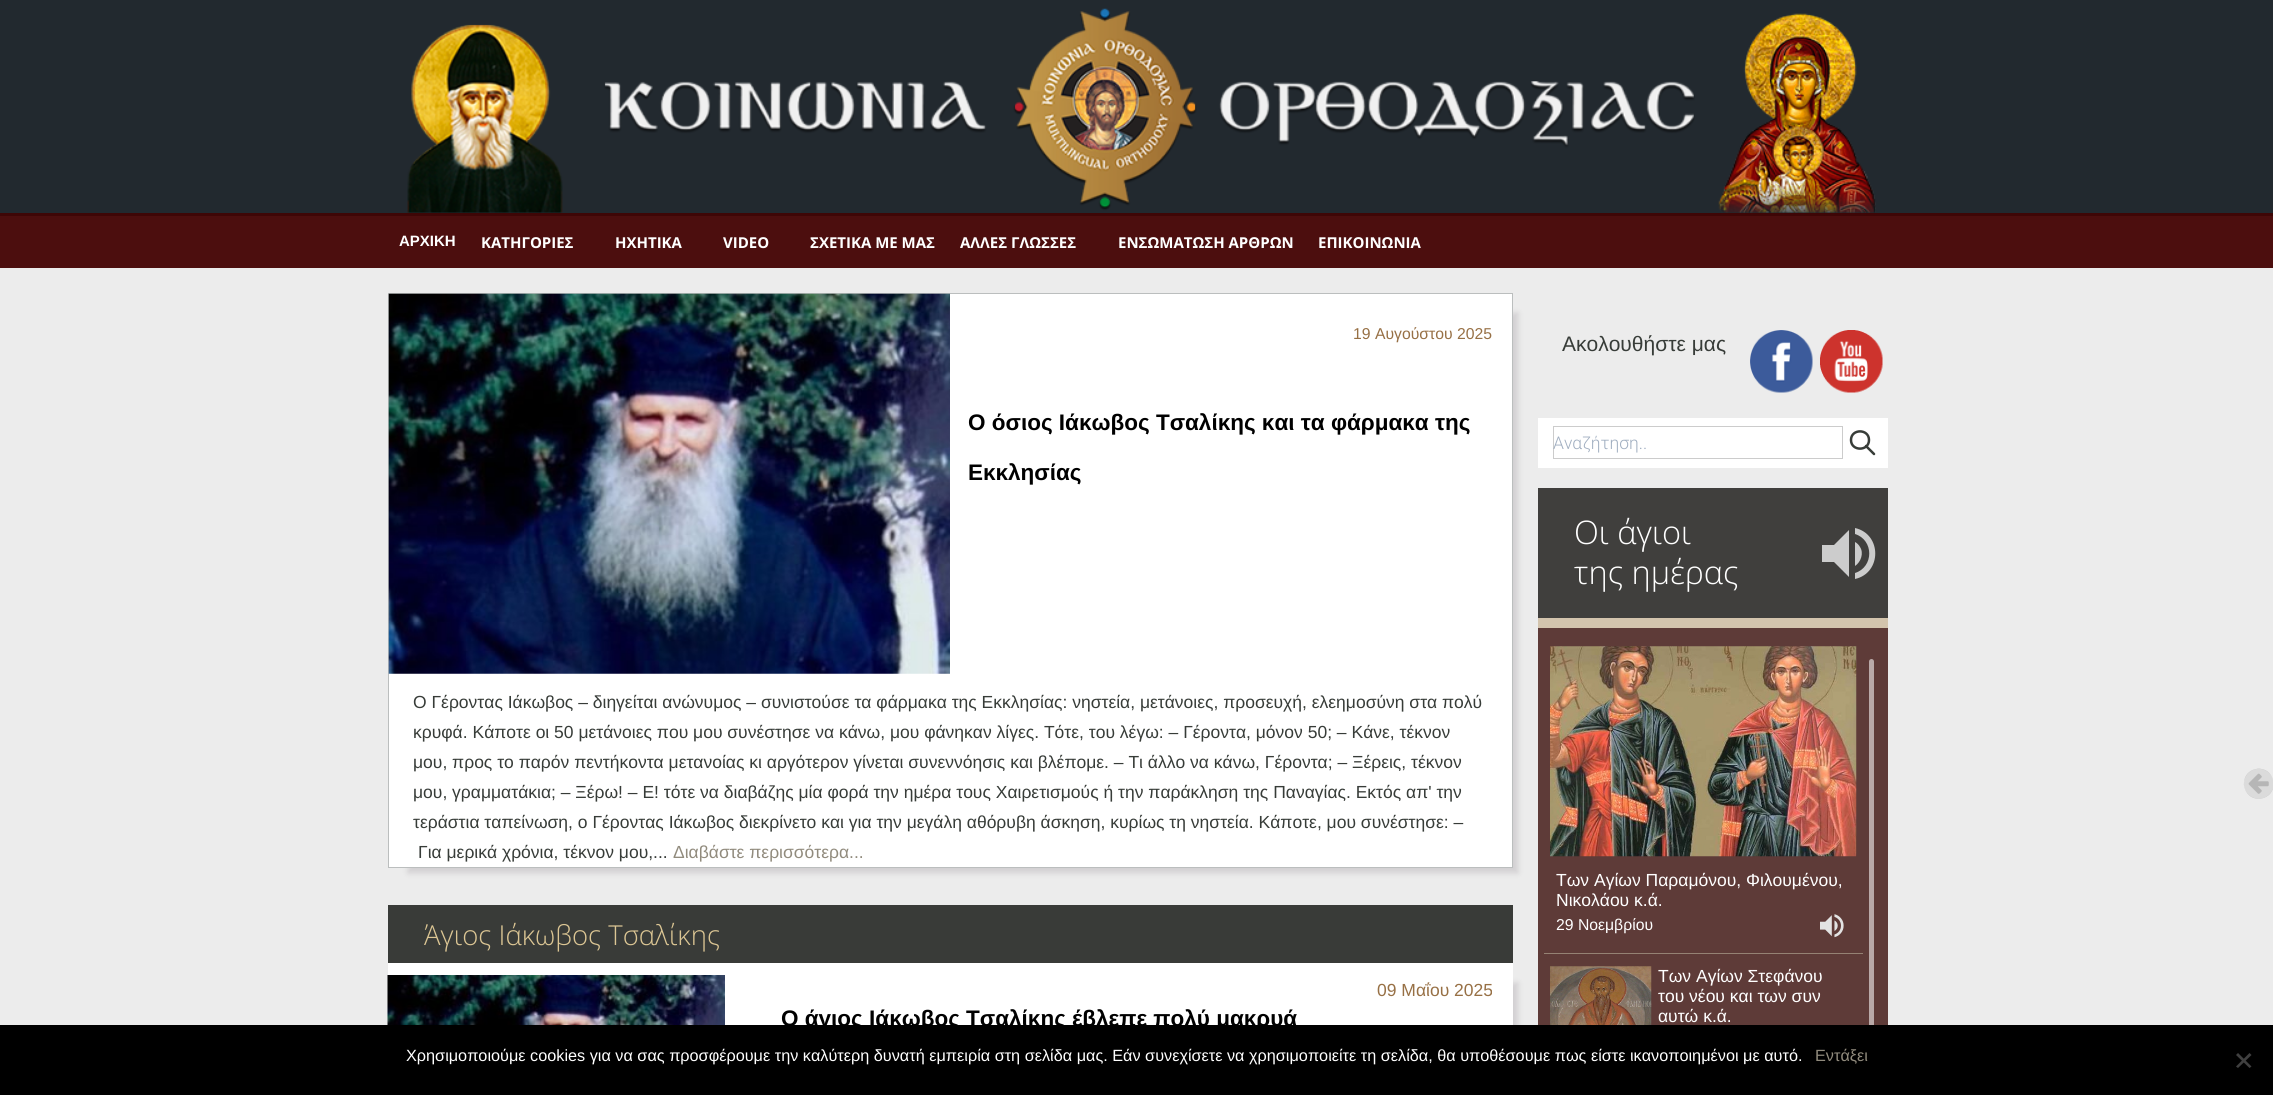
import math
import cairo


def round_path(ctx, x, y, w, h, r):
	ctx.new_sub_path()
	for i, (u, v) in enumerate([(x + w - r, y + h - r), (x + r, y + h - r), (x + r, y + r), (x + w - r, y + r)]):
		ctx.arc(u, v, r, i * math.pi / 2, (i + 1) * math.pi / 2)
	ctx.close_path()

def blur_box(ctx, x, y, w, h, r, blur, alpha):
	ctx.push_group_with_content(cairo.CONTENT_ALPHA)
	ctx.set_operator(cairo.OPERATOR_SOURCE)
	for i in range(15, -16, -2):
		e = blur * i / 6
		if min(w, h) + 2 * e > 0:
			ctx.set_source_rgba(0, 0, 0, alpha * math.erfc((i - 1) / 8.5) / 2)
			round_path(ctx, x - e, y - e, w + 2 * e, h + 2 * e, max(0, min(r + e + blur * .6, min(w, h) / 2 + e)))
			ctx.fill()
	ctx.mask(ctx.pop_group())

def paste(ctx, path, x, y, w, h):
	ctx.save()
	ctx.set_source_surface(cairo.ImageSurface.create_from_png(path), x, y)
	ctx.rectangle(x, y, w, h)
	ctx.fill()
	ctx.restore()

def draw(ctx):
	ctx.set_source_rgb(0.925, 0.925, 0.925)
	ctx.paint()
	ctx.set_source_rgb(0.133, 0.161, 0.184)
	ctx.rectangle(0, 0, 2273, 213)
	ctx.fill()
	paste(ctx, 'media/1.png', 407, 8, 1469, 205)
	ctx.set_source_rgb(0.243, 0.024, 0.024)
	ctx.rectangle(0, 213, 2273, 3)
	ctx.fill()
	ctx.set_source_rgb(0.298, 0.055, 0.055)
	ctx.rectangle(0, 216, 2273, 52)
	ctx.fill()
	ctx.select_font_face('Liberation Sans', cairo.FONT_SLANT_NORMAL, cairo.FONT_WEIGHT_BOLD)
	ctx.set_font_size(15)
	ctx.set_source_rgb(1, 1, 1)
	ctx.move_to(399, 246)
	ctx.show_text('ΑΡΧΙΚΗ')
	ctx.select_font_face('Open Sans', cairo.FONT_SLANT_NORMAL, cairo.FONT_WEIGHT_BOLD)
	for x, y, s in [
		(481, 248, 'ΚΑΤΗΓΟΡΙΕΣ'),
		(615, 248, 'ΗΧΗΤΙΚΑ'),
		(723, 248, 'VIDEO'),
		(810, 248, 'ΣΧΕΤΙΚΑ ΜΕ ΜΑΣ'),
		(960, 248, 'ΑΛΛΕΣ ΓΛΩΣΣΕΣ'),
		(1118, 248, 'ΕΝΣΩΜΑΤΩΣΗ ΑΡΘΡΩΝ'),
		(1318, 248, 'ΕΠΙΚΟΙΝΩΝΙΑ'),
	]:
		ctx.move_to(x, y)
		ctx.show_text(s)
	ctx.set_source_rgb(0.58, 0.549, 0.58)
	blur_box(ctx, 408, 313, 1110, 560, 0, 3, 0.3)
	ctx.set_source_rgb(1, 1, 1)
	ctx.rectangle(388.5, 293.5, 1124, 574)
	ctx.fill_preserve()
	ctx.set_source_rgb(0.733, 0.745, 0.745)
	ctx.set_line_width(1)
	ctx.stroke()
	paste(ctx, 'media/2.png', 388, 293, 562, 381)
	ctx.select_font_face('Liberation Sans')
	ctx.set_font_size(15.75)
	ctx.set_source_rgb(0.592, 0.439, 0.271)
	ctx.move_to(1353, 339)
	ctx.show_text('19 Αυγούστου 2025')
	ctx.select_font_face('Liberation Sans', cairo.FONT_SLANT_NORMAL, cairo.FONT_WEIGHT_BOLD)
	ctx.set_font_size(22.5)
	ctx.set_source_rgb(0, 0, 0)
	ctx.move_to(968, 430)
	ctx.show_text('Ο όσιος Ιάκωβος Τσαλίκης και τα φάρμακα της')
	ctx.move_to(968, 480)
	ctx.show_text('Εκκλησίας')
	ctx.select_font_face('Liberation Sans')
	ctx.set_font_size(17.5)
	ctx.set_source_rgb(0.216, 0.235, 0.22)
	for x, y, s in [
		(413, 708, 'Ο Γέροντας Ιάκωβος – διηγείται ανώνυμος – συνιστούσε τα φάρμακα της Εκκλησίας: νηστεία, μετάνοιες, προσευχή, ελεημοσύνη στα πολύ'),
		(413, 738, 'κρυφά. Κάποτε οι 50 μετάνοιες που μου συνέστησε να κάνω, μου φάνηκαν λίγες. Τότε, του λέγω: – Γέροντα, μόνον 50; – Κάνε, τέκνον'),
		(413, 768, 'μου, προς το παρόν πεντήκοντα μετανοίας κι αργότερον γίνεται συνεννόησις και βλέπομε. – Τι άλλο να κάνω, Γέροντα; – Ξέρεις, τέκνον'),
		(413, 798, 'μου, γραμματάκια; – Ξέρω! – Ε! τότε να διαβάζης μία φορά την ημέρα τους Χαιρετισμούς ή την παράκληση της Παναγίας. Εκτός απ\' την'),
		(413, 828, 'τεράστια ταπείνωση, ο Γέροντας Ιάκωβος διεκρίνετο και για την μεγάλη αθόρυβη άσκηση, κυρίως τη νηστεία. Κάποτε, μου συνέστησε: –'),
		(418, 858, 'Για μερικά χρόνια, τέκνον μου,...'),
	]:
		ctx.move_to(x, y)
		ctx.show_text(s)
	ctx.set_source_rgb(0.569, 0.545, 0.49)
	ctx.move_to(673, 858)
	ctx.show_text('Διαβάστε περισσότερα...')
	ctx.set_source_rgb(0.224, 0.231, 0.22)
	ctx.rectangle(388, 905, 1125, 58)
	ctx.fill()
	ctx.select_font_face('Open Sans Light')
	ctx.set_font_size(27.5)
	ctx.set_source_rgb(0.863, 0.776, 0.58)
	ctx.move_to(424, 945)
	ctx.show_text('Άγιος Ιάκωβος Τσαλίκης')
	ctx.set_source_rgb(0.58, 0.549, 0.58)
	blur_box(ctx, 408, 983, 1110, 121, 0, 3, 0.3)
	ctx.set_source_rgb(1, 1, 1)
	ctx.rectangle(388, 963, 1125, 62)
	ctx.fill()
	paste(ctx, 'media/3.png', 387, 975, 338, 50)
	ctx.select_font_face('Liberation Sans')
	ctx.set_font_size(17.5)
	ctx.set_source_rgb(0.592, 0.439, 0.271)
	ctx.move_to(1377, 996)
	ctx.show_text('09 Μαΐου 2025')
	ctx.select_font_face('Liberation Sans', cairo.FONT_SLANT_NORMAL, cairo.FONT_WEIGHT_BOLD)
	ctx.set_font_size(22.5)
	ctx.set_source_rgb(0, 0, 0)
	ctx.move_to(781, 1026)
	ctx.show_text('Ο άγιος Ιάκωβος Τσαλίκης έβλεπε πολύ μακρυά')
	ctx.select_font_face('Liberation Sans')
	ctx.set_font_size(21)
	ctx.set_source_rgb(0.216, 0.235, 0.22)
	ctx.move_to(1562, 351)
	ctx.show_text('Ακολουθήστε μας')
	paste(ctx, 'media/4.png', 1750, 330, 63, 63)
	paste(ctx, 'media/5.png', 1820, 330, 63, 63)
	ctx.set_source_rgb(1, 1, 1)
	ctx.rectangle(1538, 418, 350, 50)
	ctx.fill()
	ctx.rectangle(1553.5, 426.5, 289, 32)
	ctx.set_source_rgb(0.8, 0.8, 0.8)
	ctx.stroke()
	ctx.select_font_face('Roboto Light')
	ctx.set_font_size(17.5)
	ctx.set_source_rgb(0.627, 0.682, 0.753)
	ctx.move_to(1553, 449)
	ctx.show_text('Αναζήτηση..')
	ctx.new_path()
	ctx.move_to(1874, 454)
	ctx.line_to(1866, 446)
	ctx.move_to(1869, 440)
	ctx.curve_to(1869, 451.5, 1851, 451.5, 1851, 440)
	ctx.curve_to(1851, 428.5, 1869, 428.5, 1869, 440)
	ctx.close_path()
	ctx.set_source_rgb(0.216, 0.235, 0.22)
	ctx.set_line_width(2.5)
	ctx.set_line_cap(cairo.LINE_CAP_ROUND)
	ctx.set_line_join(cairo.LINE_JOIN_ROUND)
	ctx.stroke()
	ctx.set_source_rgb(0.251, 0.247, 0.239)
	ctx.rectangle(1538, 488, 350, 130)
	ctx.fill()
	ctx.set_source_rgb(0.827, 0.769, 0.678)
	ctx.rectangle(1538, 618, 350, 10)
	ctx.fill()
	ctx.select_font_face('Open Sans Light')
	ctx.set_font_size(32.5)
	ctx.set_source_rgb(1, 1, 1)
	ctx.move_to(1574, 544)
	ctx.show_text('Οι άγιοι')
	ctx.set_source_rgb(0.8, 0.8, 0.8)
	ctx.new_path()
	ctx.move_to(1822, 545)
	ctx.line_to(1834, 545)
	ctx.line_to(1849, 530)
	ctx.line_to(1849, 577)
	ctx.line_to(1834, 562)
	ctx.line_to(1822, 562)
	ctx.close_path()
	ctx.move_to(1860, 547)
	ctx.curve_to(1864, 553, 1861, 562, 1855, 566)
	ctx.line_to(1855, 542)
	ctx.curve_to(1857, 543, 1859, 545, 1860, 547)
	ctx.close_path()
	ctx.move_to(1855, 528)
	ctx.curve_to(1882, 534, 1882, 573, 1855, 579)
	ctx.line_to(1855, 573)
	ctx.curve_to(1874, 567, 1874, 540, 1855, 534)
	ctx.close_path()
	ctx.fill()
	ctx.set_source_rgb(1, 1, 1)
	ctx.move_to(1574, 584)
	ctx.show_text('της ημέρας')
	ctx.set_source_rgb(0.369, 0.231, 0.22)
	ctx.rectangle(1538, 628, 350, 397)
	ctx.fill()
	ctx.set_source_rgb(0.584, 0.51, 0.455)
	ctx.rectangle(1544, 953, 319, 1)
	ctx.fill()
	paste(ctx, 'media/6.png', 1550, 646, 307, 211)
	ctx.select_font_face('Liberation Sans')
	ctx.set_font_size(17.5)
	ctx.set_source_rgb(1, 1, 1)
	ctx.move_to(1556, 886)
	ctx.show_text('Των Αγίων Παραμόνου, Φιλουμένου,')
	ctx.move_to(1556, 906)
	ctx.show_text('Νικολάου κ.ά.')
	ctx.set_font_size(15.75)
	ctx.move_to(1556, 930)
	ctx.show_text('29 Νοεμβρίου')
	paste(ctx, 'media/7.png', 1820, 914, 24, 24)
	paste(ctx, 'media/8.png', 1550, 966, 102, 59)
	ctx.set_font_size(17.5)
	for x, y, s in [
		(1658, 982, 'Των Αγίων Στεφάνου'),
		(1658, 1002, 'του νέου και των συν'),
		(1658, 1022, 'αυτώ κ.ά.'),
	]:
		ctx.move_to(x, y)
		ctx.show_text(s)
	ctx.set_source_rgb(0.725, 0.663, 0.659)
	round_path(ctx, 1869, 659, 5, 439, 2.5)
	ctx.fill()
	ctx.set_source_rgb(0.714, 0.714, 0.714)
	ctx.new_path()
	ctx.move_to(2271.5, 776)
	ctx.curve_to(2273, 779, 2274, 782, 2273.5, 785)
	ctx.curve_to(2273, 799.5, 2253, 804, 2246, 791.5)
	ctx.curve_to(2244.5, 788.5, 2243.5, 785.5, 2244, 782.5)
	ctx.curve_to(2244.5, 768, 2264.5, 763.5, 2271.5, 776)
	ctx.close_path()
	ctx.fill()
	paste(ctx, 'media/9.png', 2244, 769, 29, 30)
	ctx.set_source_rgb(0, 0, 0)
	ctx.rectangle(0, 1025, 2273, 70)
	ctx.fill()
	ctx.set_font_size(16.25)
	ctx.set_source_rgb(1, 1, 1)
	ctx.move_to(406, 1061)
	ctx.show_text('Χρησιμοποιούμε cookies για να σας προσφέρουμε την καλύτερη δυνατή εμπειρία στη σελίδα μας. Εάν συνεχίσετε να χρησιμοποιείτε τη σελίδα, θα υποθέσουμε πως είστε ικανοποιημένοι με αυτό.')
	ctx.set_source_rgb(0.569, 0.545, 0.49)
	ctx.move_to(1815, 1061)
	ctx.show_text('Εντάξει')
	ctx.set_source_rgb(0.251, 0.251, 0.251)
	ctx.new_path()
	ctx.move_to(2249.5, 1053)
	ctx.line_to(2251.5, 1055)
	ctx.line_to(2238, 1068)
	ctx.line_to(2236, 1066.5)
	ctx.close_path()
	ctx.fill()
	ctx.new_path()
	ctx.move_to(2236, 1055)
	ctx.line_to(2238, 1053)
	ctx.line_to(2251.5, 1066.5)
	ctx.line_to(2249.5, 1068)
	ctx.close_path()
	ctx.fill()


surface = cairo.ImageSurface(cairo.FORMAT_RGB24, 2273, 1095)
ctx = cairo.Context(surface)
options = cairo.FontOptions()
options.set_hint_metrics(cairo.HINT_METRICS_OFF)
options.set_hint_style(cairo.HINT_STYLE_NONE)
ctx.set_font_options(options)
ctx.set_miter_limit(4)
draw(ctx)
surface.write_to_png('image.png')
